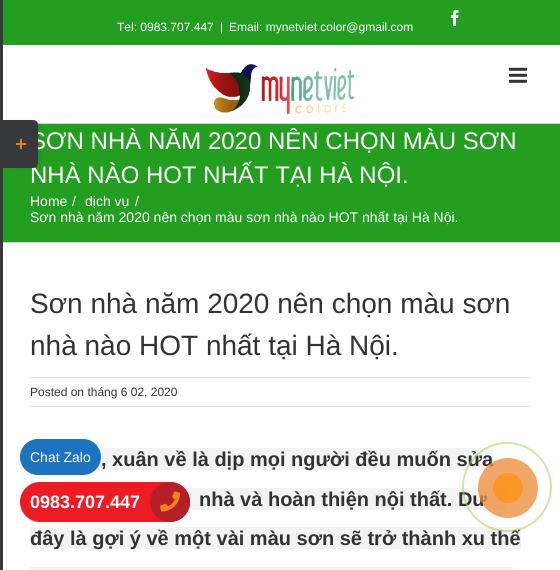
import math
import cairo


def round_path(ctx, x, y, w, h, r):
	ctx.new_sub_path()
	for i, (u, v) in enumerate([(x + w - r, y + h - r), (x + r, y + h - r), (x + r, y + r), (x + w - r, y + r)]):
		ctx.arc(u, v, r, i * math.pi / 2, (i + 1) * math.pi / 2)
	ctx.close_path()

def blur_box(ctx, x, y, w, h, r, blur, alpha):
	ctx.push_group_with_content(cairo.CONTENT_ALPHA)
	ctx.set_operator(cairo.OPERATOR_SOURCE)
	for i in range(15, -16, -2):
		e = blur * i / 6
		if min(w, h) + 2 * e > 0:
			ctx.set_source_rgba(0, 0, 0, alpha * math.erfc((i - 1) / 8.5) / 2)
			round_path(ctx, x - e, y - e, w + 2 * e, h + 2 * e, max(0, min(r + e + blur * .6, min(w, h) / 2 + e)))
			ctx.fill()
	ctx.mask(ctx.pop_group())

def paste(ctx, path, x, y, w, h):
	ctx.save()
	ctx.set_source_surface(cairo.ImageSurface.create_from_png(path), x, y)
	ctx.rectangle(x, y, w, h)
	ctx.fill()
	ctx.restore()

def draw(ctx):
	ctx.set_source_rgb(1, 1, 1)
	ctx.paint()
	ctx.set_source_rgb(0.137, 0.62, 0.129)
	ctx.rectangle(3, 124, 557, 118)
	ctx.fill()
	ctx.set_source_rgb(0.824, 0.827, 0.831)
	ctx.rectangle(37, 123, 523, 1)
	ctx.fill()
	ctx.set_source_rgb(0, 0, 0)
	blur_box(ctx, 8, 122, 31, 44, 3, 2.5, 0.14)
	ctx.set_source_rgb(0.824, 0.827, 0.831)
	ctx.rectangle(0, 242, 560, 1)
	ctx.fill()
	ctx.set_source_rgb(0.212, 0.22, 0.224)
	ctx.rectangle(0, 0, 3, 570)
	ctx.fill()
	ctx.select_font_face('Liberation Sans')
	ctx.set_font_size(24)
	ctx.set_source_rgb(1, 1, 1)
	ctx.move_to(30, 149)
	ctx.show_text('SƠN NHÀ NĂM 2020 NÊN CHỌN MÀU SƠN')
	ctx.move_to(30, 183)
	ctx.show_text('NHÀ NÀO HOT NHẤT TẠI HÀ NỘI.')
	ctx.set_source_rgb(0.212, 0.22, 0.224)
	ctx.new_path()
	ctx.move_to(3, 120)
	ctx.line_to(33, 120)
	ctx.curve_to(36, 120, 38, 122, 38, 125)
	ctx.line_to(38, 163)
	ctx.curve_to(38, 166, 36, 168, 33, 168)
	ctx.line_to(3, 168)
	ctx.close_path()
	ctx.fill()
	paste(ctx, 'media/1.png', 15, 138, 12, 12)
	ctx.set_source_rgb(0.137, 0.62, 0.129)
	ctx.rectangle(3, 0, 557, 45)
	ctx.fill()
	paste(ctx, 'media/2.png', 451, 10, 8, 16)
	ctx.set_font_size(12)
	ctx.set_source_rgb(1, 1, 1)
	for x, y, s in [
		(117, 31, 'Tel: 0983.707.447'),
		(220, 31, '|'),
		(229, 31, 'Email: mynetviet.color@gmail.com'),
	]:
		ctx.move_to(x, y)
		ctx.show_text(s)
	paste(ctx, 'media/3.png', 205, 63, 150, 52)
	paste(ctx, 'media/4.png', 509, 67, 18, 16)
	ctx.set_font_size(14)
	for x, y, s in [
		(30, 206, 'Home'),
		(72, 206, '/'),
		(85, 206, 'dịch vụ'),
		(135, 206, '/'),
		(30, 222, 'Sơn nhà năm 2020 nên chọn màu sơn nhà nào HOT nhất tại Hà Nội.'),
	]:
		ctx.move_to(x, y)
		ctx.show_text(s)
	ctx.set_font_size(28)
	ctx.set_source_rgb(0.2, 0.2, 0.2)
	ctx.move_to(30, 313)
	ctx.show_text('Sơn nhà năm 2020 nên chọn màu sơn')
	ctx.move_to(30, 355)
	ctx.show_text('nhà nào HOT nhất tại Hà Nội.')
	ctx.set_source_rgb(0.906, 0.902, 0.902)
	ctx.rectangle(30, 377, 500, 1)
	ctx.fill()
	ctx.rectangle(30, 406, 500, 1)
	ctx.fill()
	ctx.set_font_size(12)
	ctx.set_source_rgb(0.2, 0.2, 0.2)
	ctx.move_to(30, 396)
	ctx.show_text('Posted on tháng 6 02, 2020')
	ctx.set_source_rgb(0.953, 0.953, 0.953)
	ctx.rectangle(95, 448, 398, 22)
	ctx.fill()
	ctx.select_font_face('Liberation Sans', cairo.FONT_SLANT_NORMAL, cairo.FONT_WEIGHT_BOLD)
	ctx.set_font_size(20)
	ctx.set_source_rgb(0.2, 0.2, 0.2)
	ctx.move_to(101, 466)
	ctx.show_text(', xuân về là dịp mọi người đều muốn sửa')
	ctx.set_source_rgb(0.953, 0.953, 0.953)
	ctx.rectangle(184, 488, 322, 22)
	ctx.fill()
	ctx.set_source_rgb(0.2, 0.2, 0.2)
	ctx.move_to(199, 506)
	ctx.show_text('nhà và hoàn thiện nội thất. Dư')
	ctx.set_source_rgb(0.953, 0.953, 0.953)
	ctx.rectangle(30, 527, 491, 22)
	ctx.fill()
	ctx.set_source_rgb(0.2, 0.2, 0.2)
	ctx.move_to(30, 545)
	ctx.show_text('đây là gợi ý về một vài màu sơn sẽ trở thành xu thế')
	ctx.set_source_rgb(0.953, 0.953, 0.953)
	ctx.rectangle(30, 567, 483, 3)
	ctx.fill()
	ctx.set_source_rgb(0.118, 0.451, 0.745)
	round_path(ctx, 20, 439, 81, 36, 18)
	ctx.fill()
	ctx.select_font_face('Liberation Sans')
	ctx.set_font_size(14)
	ctx.set_source_rgb(1, 1, 1)
	ctx.move_to(30, 462)
	ctx.show_text('Chat Zalo')
	ctx.new_path()
	ctx.arc(507, 487, 44, 0, 2 * math.pi)
	ctx.set_source_rgba(0.627, 0.808, 0.306, 0.5)
	ctx.stroke()
	ctx.set_source_rgba(0.925, 0.537, 0.208, 0.75)
	ctx.arc(508, 488, 30, 0, 2 * math.pi)
	ctx.fill()
	ctx.set_source_rgba(1, 0.565, 0.043, 0.7)
	ctx.arc(508, 488, 15, 0, 2 * math.pi)
	ctx.fill()
	ctx.set_source_rgb(0.929, 0.11, 0.141)
	round_path(ctx, 20, 482, 170, 40, 20)
	ctx.fill()
	ctx.select_font_face('Liberation Sans', cairo.FONT_SLANT_NORMAL, cairo.FONT_WEIGHT_BOLD)
	ctx.set_font_size(18)
	ctx.set_source_rgb(1, 1, 1)
	ctx.move_to(30, 508)
	ctx.show_text('0983.707.447')
	ctx.set_source_rgb(0.71, 0.125, 0.149)
	ctx.new_path()
	ctx.arc(170, 502, 20, 0, 2 * math.pi)
	ctx.fill()
	paste(ctx, 'media/5.png', 160, 491, 20, 21)


surface = cairo.ImageSurface(cairo.FORMAT_RGB24, 560, 570)
ctx = cairo.Context(surface)
options = cairo.FontOptions()
options.set_hint_metrics(cairo.HINT_METRICS_OFF)
options.set_hint_style(cairo.HINT_STYLE_NONE)
ctx.set_font_options(options)
ctx.set_miter_limit(4)
draw(ctx)
surface.write_to_png('image.png')
